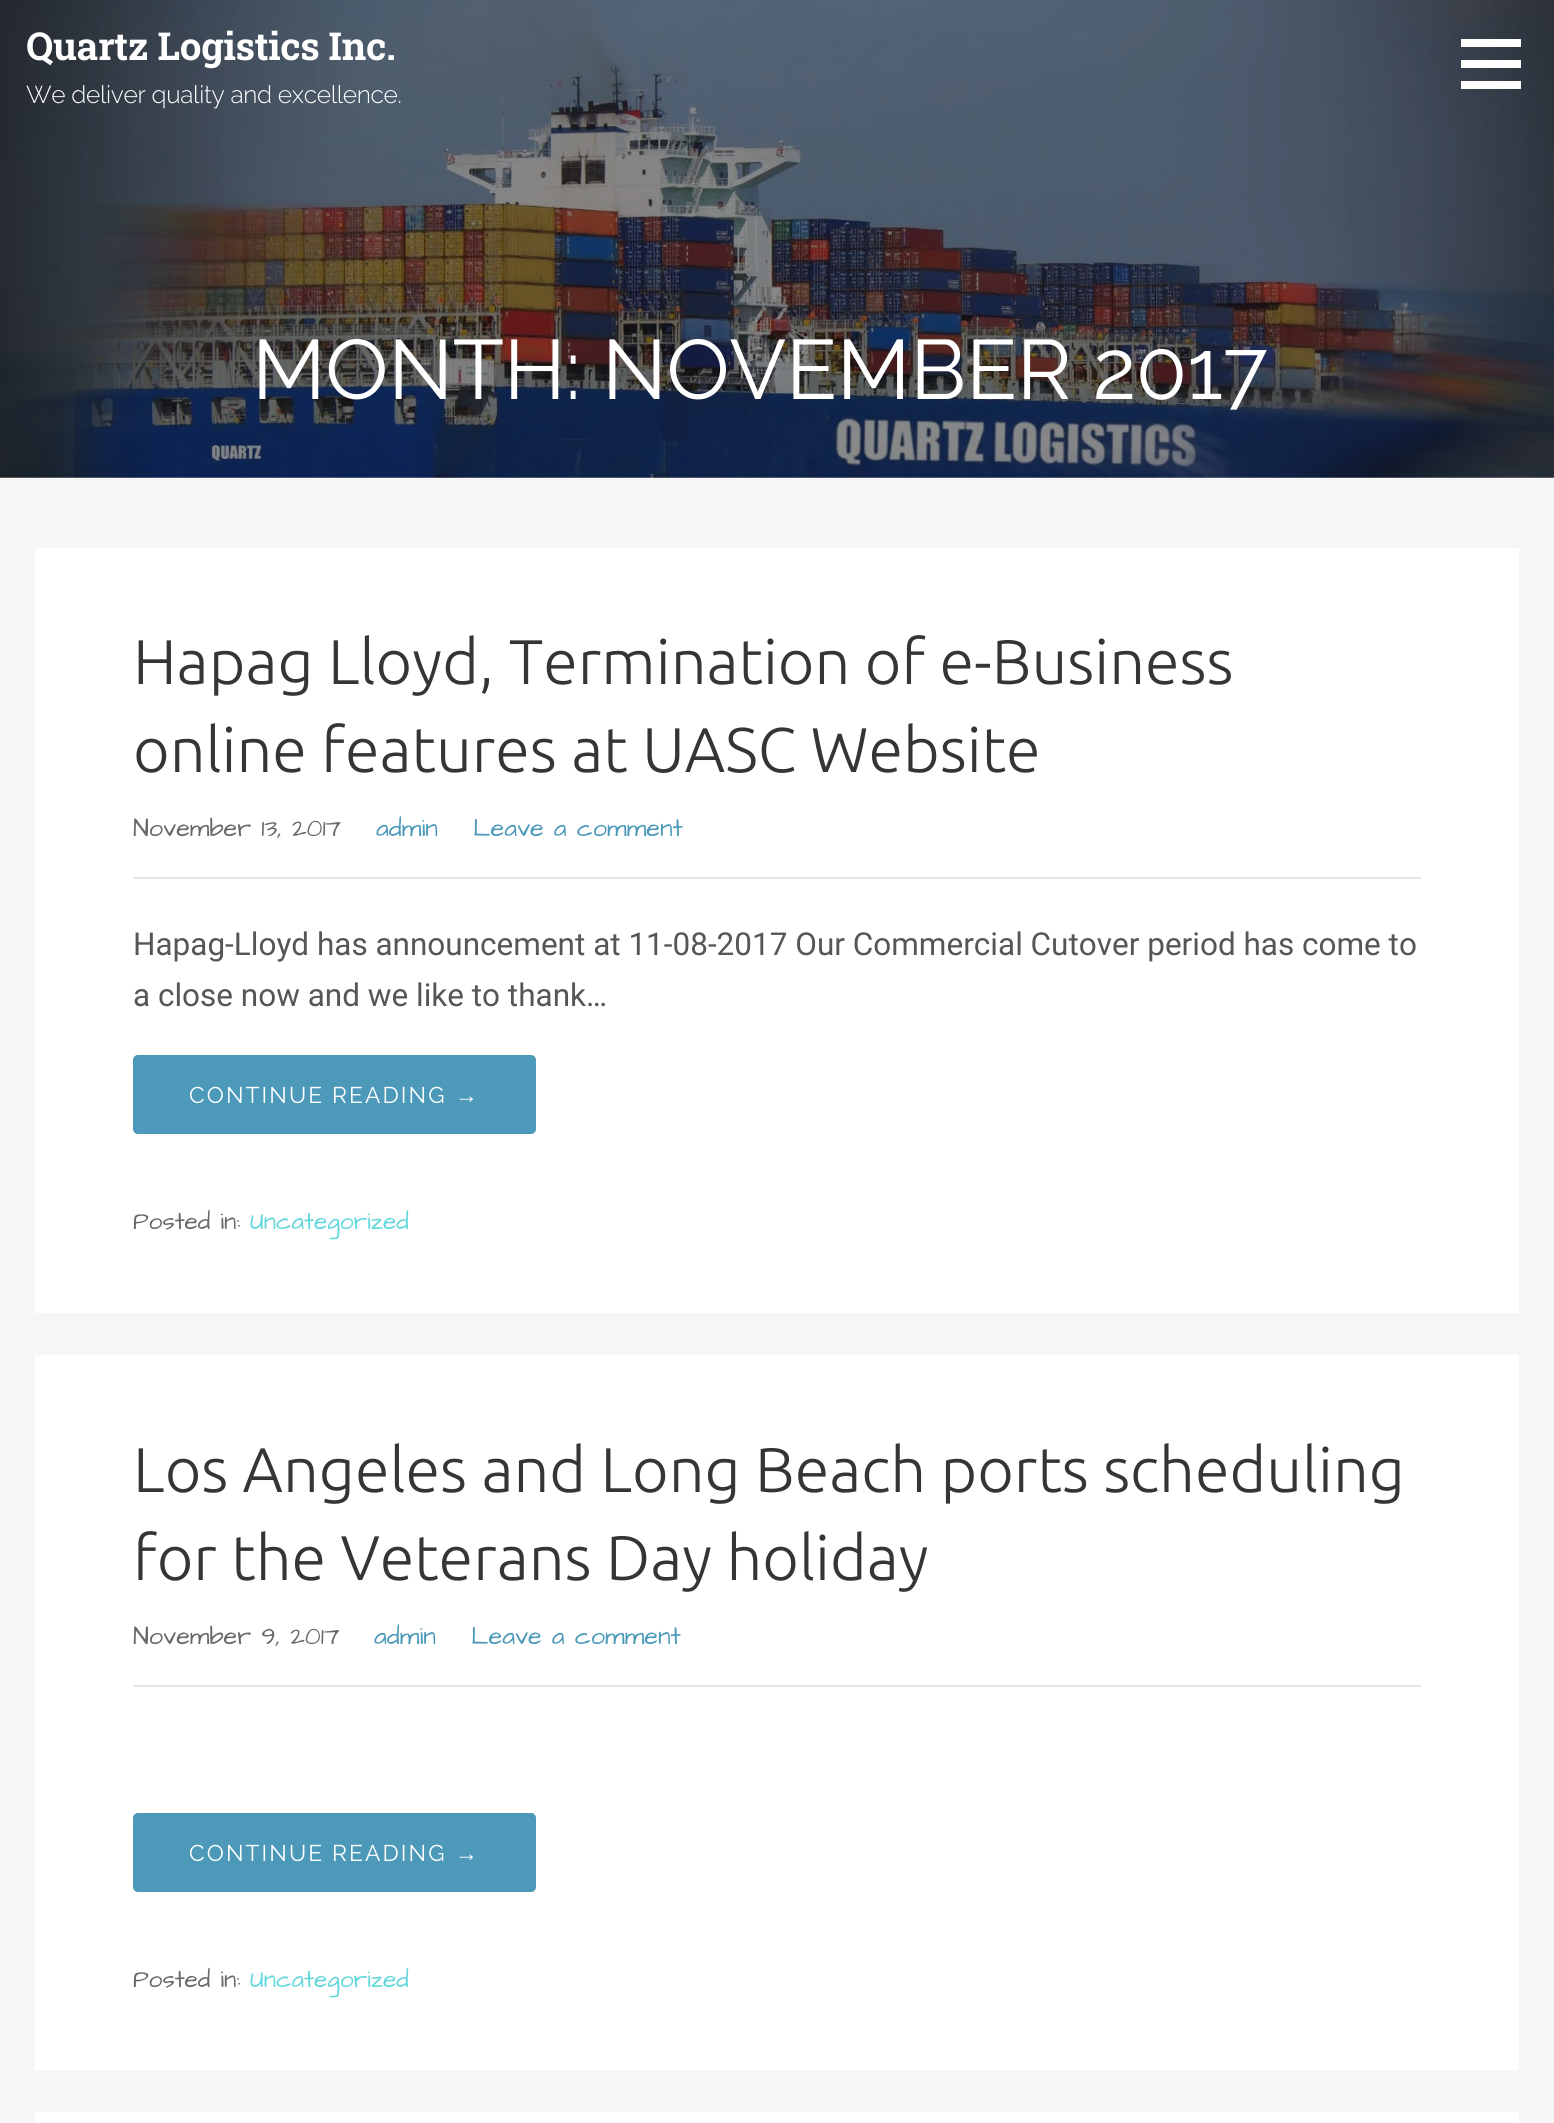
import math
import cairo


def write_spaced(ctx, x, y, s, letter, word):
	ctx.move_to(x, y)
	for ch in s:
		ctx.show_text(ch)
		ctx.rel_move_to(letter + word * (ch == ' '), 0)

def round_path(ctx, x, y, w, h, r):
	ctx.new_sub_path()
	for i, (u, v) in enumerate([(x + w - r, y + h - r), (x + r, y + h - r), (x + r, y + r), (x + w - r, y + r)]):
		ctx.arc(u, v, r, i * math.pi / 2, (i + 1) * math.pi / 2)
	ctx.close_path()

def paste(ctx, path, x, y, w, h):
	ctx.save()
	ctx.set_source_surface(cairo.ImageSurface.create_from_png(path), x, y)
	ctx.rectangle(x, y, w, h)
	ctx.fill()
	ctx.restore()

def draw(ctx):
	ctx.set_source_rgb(0.961, 0.961, 0.961)
	ctx.paint()
	paste(ctx, 'media/1.png', 0, 0, 1554, 478)
	ctx.select_font_face('Roboto Slab', cairo.FONT_SLANT_NORMAL, cairo.FONT_WEIGHT_BOLD)
	ctx.set_font_size(38.5)
	ctx.set_source_rgb(1, 1, 1)
	write_spaced(ctx, 26, 60, 'Quartz Logistics Inc.', -0.3, 0)
	ctx.select_font_face('Raleway Light')
	ctx.set_font_size(24.5)
	write_spaced(ctx, 26, 103, 'We deliver quality and excellence.', -0.3, 0)
	ctx.rectangle(1461, 39, 60, 8)
	ctx.rectangle(1461, 60, 60, 8)
	ctx.rectangle(1461, 81, 60, 8)
	ctx.fill()
	ctx.select_font_face('Raleway')
	ctx.set_font_size(84)
	write_spaced(ctx, 252, 399, 'MONTH: NOVEMBER 2017', -0.3, 0)
	ctx.rectangle(35, 548, 1484, 765)
	ctx.fill()
	ctx.select_font_face('Ubuntu Light')
	ctx.set_font_size(63)
	ctx.set_source_rgb(0.208, 0.208, 0.208)
	ctx.move_to(133, 684)
	ctx.show_text('Hapag Lloyd, Termination of e-Business')
	ctx.move_to(133, 772)
	ctx.show_text('online features at UASC Website')
	ctx.set_source_rgb(0.902, 0.902, 0.902)
	ctx.rectangle(133, 877, 1288, 2)
	ctx.fill()
	ctx.select_font_face('Architects Daughter')
	ctx.set_font_size(25.25)
	ctx.set_source_rgb(0.408, 0.408, 0.408)
	ctx.move_to(133, 836)
	ctx.show_text('November 13, 2017')
	ctx.set_source_rgb(0.298, 0.6, 0.729)
	ctx.move_to(376, 836)
	ctx.show_text('admin')
	ctx.move_to(473, 836)
	ctx.show_text('Leave a comment')
	ctx.select_font_face('Roboto')
	ctx.set_font_size(31.5)
	ctx.set_source_rgb(0.337, 0.337, 0.337)
	ctx.move_to(133, 955)
	ctx.show_text('Hapag-Lloyd has announcement at 11-08-2017 Our Commercial Cutover period has come to')
	ctx.move_to(133, 1006)
	ctx.show_text('a close now and we like to thank…')
	ctx.set_source_rgb(0.298, 0.6, 0.729)
	round_path(ctx, 133, 1055, 403, 79, 5)
	ctx.fill()
	ctx.select_font_face('Raleway')
	ctx.set_font_size(22.75)
	ctx.set_source_rgb(1, 1, 1)
	write_spaced(ctx, 189, 1103, 'CONTINUE READING', 2.1, 0)
	ctx.select_font_face('Liberation Sans')
	write_spaced(ctx, 455, 1103, '→', 2.1, 0)
	ctx.select_font_face('Architects Daughter')
	ctx.set_font_size(24.5)
	ctx.set_source_rgb(0.408, 0.408, 0.408)
	ctx.move_to(133, 1229)
	ctx.show_text('Posted in:')
	ctx.set_source_rgb(0.384, 0.843, 0.859)
	ctx.move_to(250, 1229)
	ctx.show_text('Uncategorized')
	ctx.set_source_rgb(1, 1, 1)
	ctx.rectangle(35, 1355, 1484, 715)
	ctx.fill()
	ctx.select_font_face('Ubuntu Light')
	ctx.set_font_size(63)
	ctx.set_source_rgb(0.208, 0.208, 0.208)
	ctx.move_to(133, 1492)
	ctx.show_text('Los Angeles and Long Beach ports scheduling')
	ctx.move_to(133, 1580)
	ctx.show_text('for the Veterans Day holiday')
	ctx.set_source_rgb(0.902, 0.902, 0.902)
	ctx.rectangle(133, 1685, 1288, 2)
	ctx.fill()
	ctx.select_font_face('Architects Daughter')
	ctx.set_font_size(25.25)
	ctx.set_source_rgb(0.408, 0.408, 0.408)
	ctx.move_to(133, 1644)
	ctx.show_text('November 9, 2017')
	ctx.set_source_rgb(0.298, 0.6, 0.729)
	ctx.move_to(374, 1644)
	ctx.show_text('admin')
	ctx.move_to(471, 1644)
	ctx.show_text('Leave a comment')
	round_path(ctx, 133, 1813, 403, 79, 5)
	ctx.fill()
	ctx.select_font_face('Raleway')
	ctx.set_font_size(22.75)
	ctx.set_source_rgb(1, 1, 1)
	write_spaced(ctx, 189, 1861, 'CONTINUE READING', 2.1, 0)
	ctx.select_font_face('Liberation Sans')
	write_spaced(ctx, 455, 1861, '→', 2.1, 0)
	ctx.select_font_face('Architects Daughter')
	ctx.set_font_size(24.5)
	ctx.set_source_rgb(0.408, 0.408, 0.408)
	ctx.move_to(133, 1987)
	ctx.show_text('Posted in:')
	ctx.set_source_rgb(0.384, 0.843, 0.859)
	ctx.move_to(250, 1987)
	ctx.show_text('Uncategorized')
	ctx.set_source_rgb(1, 1, 1)
	ctx.rectangle(35, 2112, 1484, 11)
	ctx.fill()


surface = cairo.ImageSurface(cairo.FORMAT_RGB24, 1554, 2123)
ctx = cairo.Context(surface)
options = cairo.FontOptions()
options.set_hint_metrics(cairo.HINT_METRICS_OFF)
options.set_hint_style(cairo.HINT_STYLE_NONE)
ctx.set_font_options(options)
ctx.set_miter_limit(4)
draw(ctx)
surface.write_to_png('image.png')
